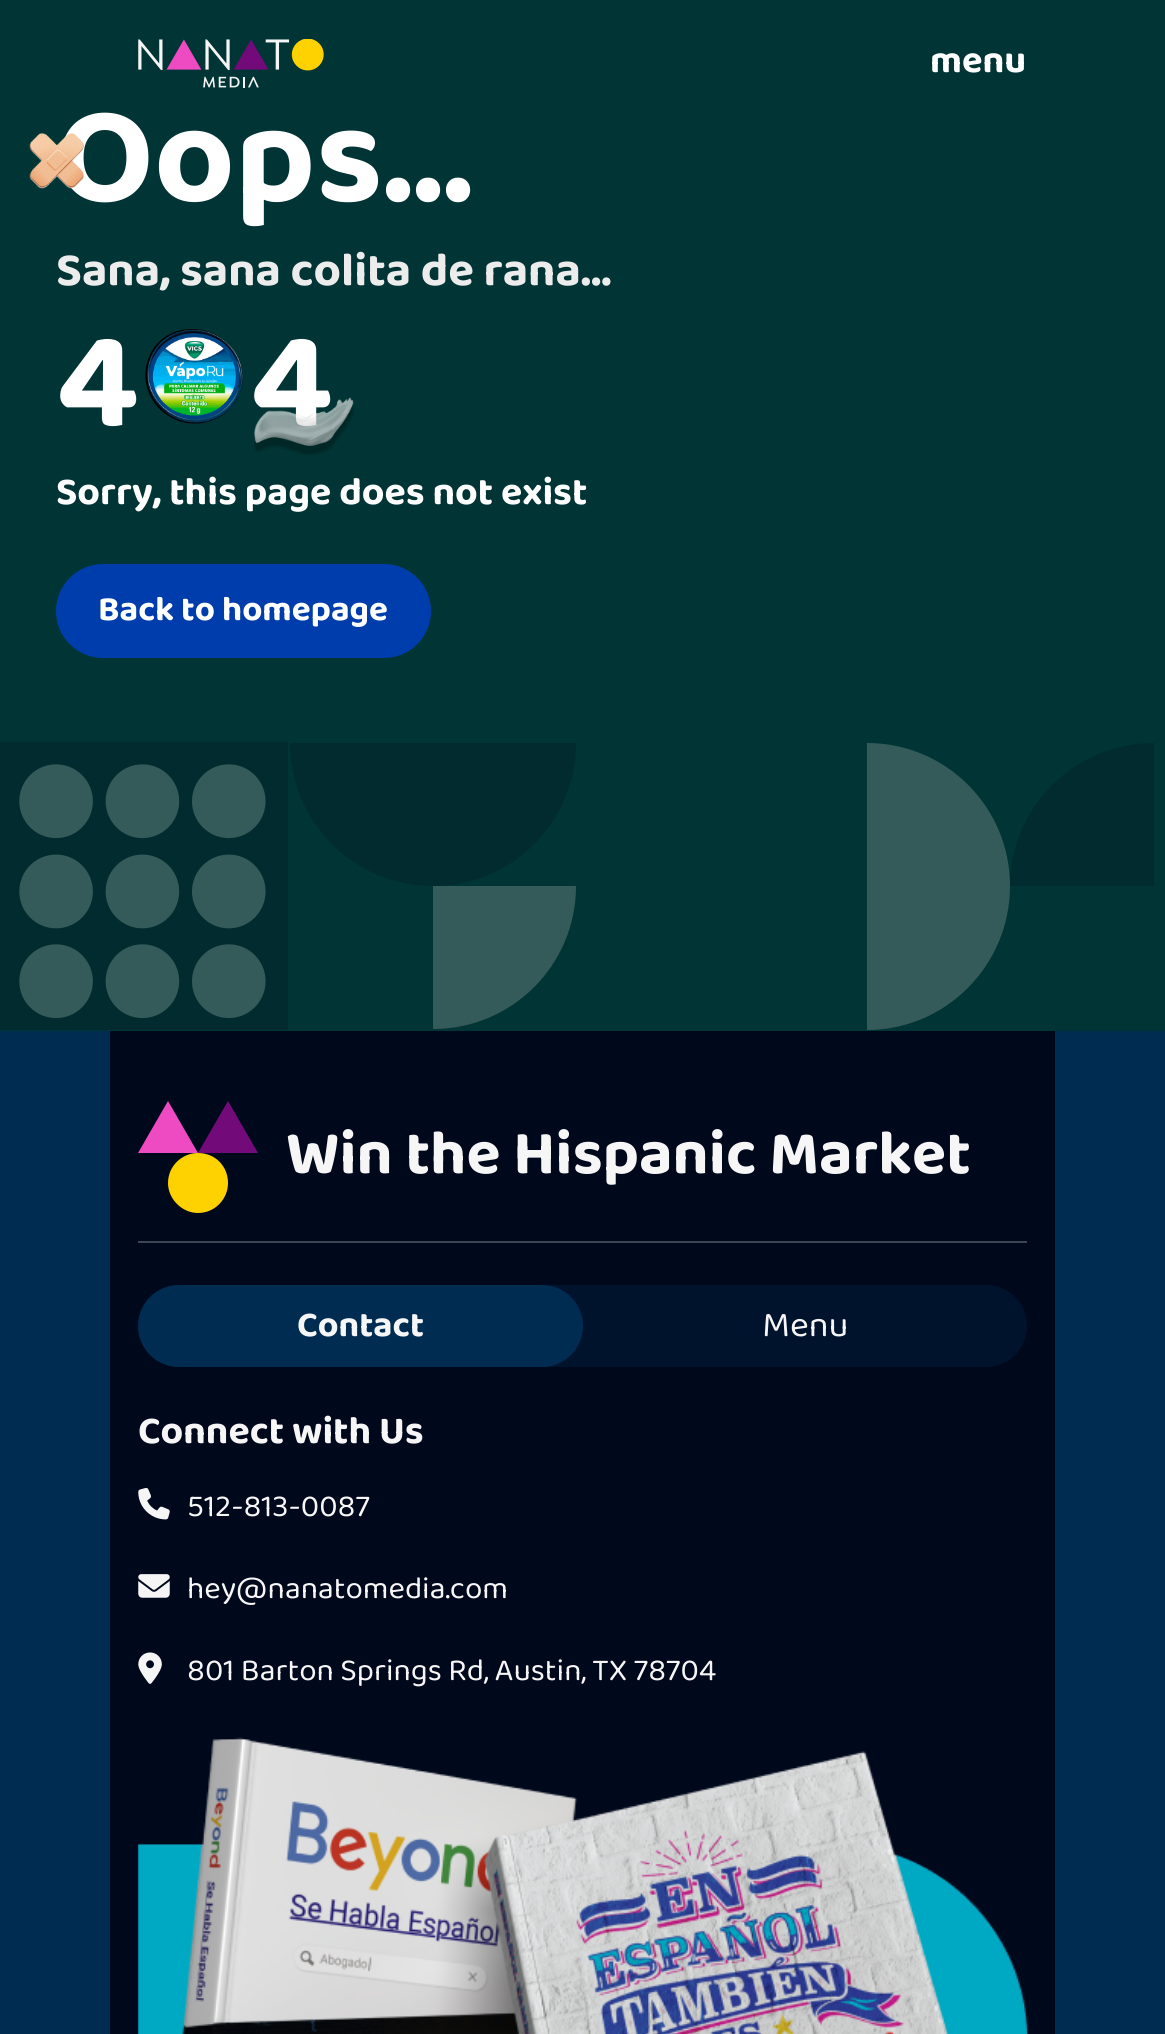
import math
import cairo


def round_path(ctx, x, y, w, h, r):
	ctx.new_sub_path()
	for i, (u, v) in enumerate([(x + w - r, y + h - r), (x + r, y + h - r), (x + r, y + r), (x + w - r, y + r)]):
		ctx.arc(u, v, r, i * math.pi / 2, (i + 1) * math.pi / 2)
	ctx.close_path()

def paste(ctx, path, x, y, w, h):
	ctx.save()
	ctx.set_source_surface(cairo.ImageSurface.create_from_png(path), x, y)
	ctx.rectangle(x, y, w, h)
	ctx.fill()
	ctx.restore()

def draw(ctx):
	ctx.set_source_rgb(0, 0.173, 0.318)
	ctx.paint()
	ctx.set_source_rgb(0.004, 0.204, 0.204)
	ctx.rectangle(0, 0, 1165, 1031)
	ctx.fill()
	paste(ctx, 'media/1.png', 138, 39, 186, 49)
	ctx.select_font_face('Baloo 2', cairo.FONT_SLANT_NORMAL, cairo.FONT_WEIGHT_BOLD)
	ctx.set_font_size(38)
	ctx.set_source_rgb(1, 1, 1)
	ctx.move_to(930, 72)
	ctx.show_text('menu')
	ctx.set_font_size(140)
	ctx.move_to(56, 200)
	ctx.show_text('Oops...')
	paste(ctx, 'media/2.png', 29, 133, 55, 56)
	ctx.set_font_size(47.6)
	ctx.set_source_rgb(0.925, 0.925, 0.925)
	ctx.move_to(56, 285)
	ctx.show_text('Sana, sana colita de rana...')
	ctx.set_font_size(140)
	ctx.set_source_rgb(1, 1, 1)
	ctx.move_to(56, 425)
	ctx.show_text('4')
	paste(ctx, 'media/3.png', 145, 329, 98, 95)
	ctx.move_to(250, 425)
	ctx.show_text('4')
	paste(ctx, 'media/4.png', 254, 397, 100, 58)
	ctx.set_font_size(39.25)
	ctx.move_to(56, 504)
	ctx.show_text('Sorry, this page does not exist')
	ctx.set_source_rgb(0, 0.239, 0.675)
	round_path(ctx, 56, 564, 375, 94, 47)
	ctx.fill()
	ctx.set_font_size(35)
	ctx.set_source_rgb(1, 1, 1)
	ctx.move_to(98, 620)
	ctx.show_text('Back to homepage')
	paste(ctx, 'media/5.png', 0, 742, 288, 288)
	ctx.set_source_rgb(0.004, 0.169, 0.184)
	ctx.new_path()
	ctx.move_to(433, 886)
	ctx.curve_to(354, 886, 290, 822, 290, 743)
	ctx.line_to(433, 743)
	ctx.close_path()
	ctx.fill()
	ctx.new_path()
	ctx.move_to(433, 886)
	ctx.line_to(433, 743)
	ctx.line_to(576, 743)
	ctx.curve_to(576, 822, 512, 886, 433, 886)
	ctx.close_path()
	ctx.fill()
	ctx.set_source_rgb(0.204, 0.357, 0.353)
	ctx.new_path()
	ctx.move_to(433, 1029)
	ctx.curve_to(512, 1029, 576, 965, 576, 886)
	ctx.line_to(433, 886)
	ctx.close_path()
	ctx.fill()
	ctx.set_fill_rule(cairo.FILL_RULE_EVEN_ODD)
	ctx.new_path()
	ctx.move_to(867, 886)
	ctx.line_to(867, 743)
	ctx.curve_to(946, 743, 1010, 807, 1010, 886)
	ctx.curve_to(1010, 965, 946, 1030, 867, 1030)
	ctx.close_path()
	ctx.fill()
	ctx.set_source_rgb(0.004, 0.169, 0.184)
	ctx.set_fill_rule(cairo.FILL_RULE_WINDING)
	ctx.new_path()
	ctx.move_to(1154, 743)
	ctx.curve_to(1075, 743, 1010, 807, 1010, 886)
	ctx.line_to(1154, 886)
	ctx.close_path()
	ctx.fill()
	ctx.set_source_rgb(0, 0.035, 0.11)
	ctx.rectangle(110, 1031, 945, 1003)
	ctx.fill()
	ctx.set_source_rgb(0.996, 0.82, 0)
	ctx.new_path()
	ctx.move_to(228, 1183)
	ctx.curve_to(228, 1199, 215, 1213, 198, 1213)
	ctx.curve_to(182, 1213, 168, 1199, 168, 1183)
	ctx.curve_to(168, 1166, 182, 1153, 198, 1153)
	ctx.curve_to(215, 1153, 228, 1166, 228, 1183)
	ctx.close_path()
	ctx.fill()
	ctx.set_source_rgb(0.933, 0.294, 0.765)
	ctx.new_path()
	ctx.move_to(168, 1153)
	ctx.line_to(138, 1153)
	ctx.line_to(168, 1101)
	ctx.line_to(198, 1153)
	ctx.close_path()
	ctx.fill()
	ctx.set_source_rgb(0.447, 0.043, 0.475)
	ctx.new_path()
	ctx.move_to(228, 1153)
	ctx.line_to(198, 1153)
	ctx.line_to(228, 1101)
	ctx.line_to(258, 1153)
	ctx.close_path()
	ctx.fill()
	ctx.set_font_size(63)
	ctx.set_source_rgb(0.961, 0.961, 0.961)
	ctx.move_to(286, 1173)
	ctx.show_text('Win the Hispanic Market')
	ctx.set_source_rgb(0.239, 0.267, 0.322)
	ctx.rectangle(138, 1241, 889, 2)
	ctx.fill()
	ctx.set_source_rgb(0, 0.078, 0.176)
	round_path(ctx, 138, 1285, 889, 82, 41)
	ctx.fill()
	ctx.set_source_rgb(0, 0.173, 0.318)
	round_path(ctx, 138, 1285, 445, 82, 41)
	ctx.fill()
	ctx.set_font_size(36)
	ctx.set_source_rgb(0.961, 0.961, 0.961)
	ctx.move_to(297, 1336)
	ctx.show_text('Contact')
	ctx.select_font_face('Baloo 2')
	ctx.move_to(762, 1336)
	ctx.show_text('Menu')
	ctx.select_font_face('Baloo 2', cairo.FONT_SLANT_NORMAL, cairo.FONT_WEIGHT_BOLD)
	ctx.set_font_size(39.25)
	ctx.move_to(138, 1443)
	ctx.show_text('Connect with Us')
	paste(ctx, 'media/6.png', 138, 1487, 32, 33)
	ctx.select_font_face('Baloo 2')
	ctx.set_font_size(31.5)
	ctx.move_to(187, 1516)
	ctx.show_text('512-813-0087')
	paste(ctx, 'media/7.png', 138, 1574, 32, 24)
	ctx.move_to(187, 1598)
	ctx.show_text('hey@nanatomedia.com')
	paste(ctx, 'media/8.png', 138, 1652, 24, 32)
	ctx.move_to(187, 1680)
	ctx.show_text('801 Barton Springs Rd, Austin, TX 78704')
	paste(ctx, 'media/9.png', 138, 1737, 890, 297)


surface = cairo.ImageSurface(cairo.FORMAT_RGB24, 1165, 2034)
ctx = cairo.Context(surface)
options = cairo.FontOptions()
options.set_hint_metrics(cairo.HINT_METRICS_OFF)
options.set_hint_style(cairo.HINT_STYLE_NONE)
ctx.set_font_options(options)
ctx.set_miter_limit(4)
draw(ctx)
surface.write_to_png('image.png')
